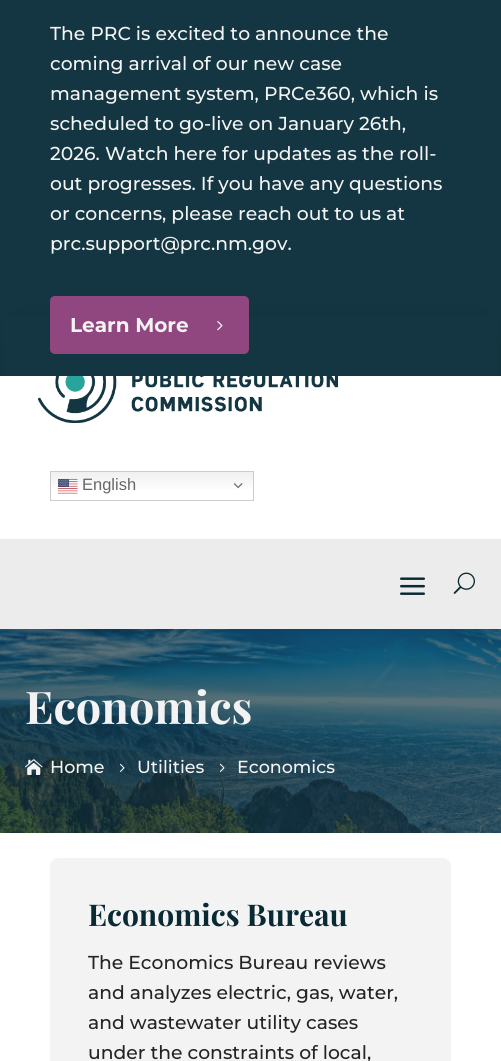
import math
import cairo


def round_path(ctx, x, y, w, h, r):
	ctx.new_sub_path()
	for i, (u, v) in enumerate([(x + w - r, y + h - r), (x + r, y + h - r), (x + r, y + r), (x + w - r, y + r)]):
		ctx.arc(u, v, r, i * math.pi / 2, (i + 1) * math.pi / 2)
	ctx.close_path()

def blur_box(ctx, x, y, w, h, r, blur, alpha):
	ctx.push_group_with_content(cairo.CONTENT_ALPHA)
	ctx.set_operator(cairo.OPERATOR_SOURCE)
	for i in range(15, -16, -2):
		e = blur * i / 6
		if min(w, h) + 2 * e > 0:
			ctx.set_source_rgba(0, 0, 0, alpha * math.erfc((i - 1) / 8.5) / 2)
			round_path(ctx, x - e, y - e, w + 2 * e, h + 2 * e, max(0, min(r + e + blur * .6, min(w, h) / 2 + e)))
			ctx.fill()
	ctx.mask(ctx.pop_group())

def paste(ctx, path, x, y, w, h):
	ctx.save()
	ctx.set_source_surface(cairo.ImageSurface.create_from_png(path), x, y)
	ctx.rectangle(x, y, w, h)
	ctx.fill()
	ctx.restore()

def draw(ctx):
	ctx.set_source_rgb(0.078, 0.212, 0.259)
	ctx.paint()
	paste(ctx, 'media/7.png', 0, 629, 501, 204)
	ctx.set_source_rgb(0, 0, 0)
	blur_box(ctx, 20, 333, 461, 286, 0, 15, 0.3)
	ctx.set_source_rgb(0.078, 0.212, 0.259)
	ctx.rectangle(3, 316, 495, 60)
	ctx.fill()
	ctx.select_font_face('Montserrat Thin')
	ctx.set_font_size(18.75)
	ctx.set_source_rgb(0.953, 0.953, 0.953)
	for x, y, s in [
		(50, 40, 'The PRC is excited to announce the'),
		(50, 70, 'coming arrival of our new case'),
		(50, 100, 'management system, PRCe360, which is'),
		(50, 130, 'scheduled to go-live on January 26th,'),
		(50, 160, '2026. Watch here for updates as the roll-'),
		(50, 190, 'out progresses. If you have any questions'),
		(50, 220, 'or concerns, please reach out to us at'),
		(50, 250, 'prc.support@prc.nm.gov.'),
	]:
		ctx.move_to(x, y)
		ctx.show_text(s)
	ctx.set_source_rgb(0.565, 0.278, 0.498)
	round_path(ctx, 50, 296, 199, 58, 5)
	ctx.fill()
	ctx.select_font_face('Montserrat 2 Thin')
	ctx.set_font_size(20)
	ctx.set_source_rgb(0.953, 0.953, 0.953)
	ctx.move_to(70, 332)
	ctx.show_text('Learn More')
	paste(ctx, 'media/1.png', 217, 321, 6, 10)
	ctx.set_source_rgb(1, 1, 1)
	ctx.rectangle(0, 376, 501, 163)
	ctx.fill()
	paste(ctx, 'media/2.png', 38, 376, 300, 47)
	gradient = cairo.LinearGradient(152, 471, 152, 501)
	gradient.add_color_stop_rgba(0, 0.937, 0.937, 0.937, 1)
	gradient.add_color_stop_rgba(0.7, 1, 1, 1, 1)
	ctx.set_source(gradient)
	ctx.rectangle(51, 472, 202, 17)
	ctx.fill()
	ctx.rectangle(50.5, 471.5, 203, 29)
	ctx.set_source_rgb(0.8, 0.8, 0.8)
	ctx.set_line_width(1)
	ctx.stroke()
	paste(ctx, 'media/3.png', 58, 478, 20, 16)
	ctx.select_font_face('Liberation Sans')
	ctx.set_font_size(16.5)
	ctx.set_source_rgb(0.4, 0.4, 0.4)
	ctx.move_to(82, 490)
	ctx.show_text('English')
	paste(ctx, 'media/4.png', 234, 483, 9, 6)
	ctx.set_source_rgb(0.925, 0.925, 0.925)
	ctx.rectangle(0, 539, 501, 90)
	ctx.fill()
	paste(ctx, 'media/5.png', 400, 577, 25, 18)
	paste(ctx, 'media/6.png', 453, 572, 22, 22)
	ctx.select_font_face('Playfair Display', cairo.FONT_SLANT_NORMAL, cairo.FONT_WEIGHT_BOLD)
	ctx.set_font_size(45)
	ctx.set_source_rgb(0.953, 0.953, 0.953)
	ctx.move_to(25, 724)
	ctx.show_text('Economics')
	paste(ctx, 'media/8.png', 25, 759, 18, 16)
	ctx.select_font_face('Montserrat Thin')
	ctx.set_font_size(17.5)
	ctx.move_to(50, 773)
	ctx.show_text('Home')
	paste(ctx, 'media/9.png', 119, 763, 6, 9)
	ctx.move_to(137, 773)
	ctx.show_text('Utilities')
	paste(ctx, 'media/10.png', 219, 763, 6, 9)
	ctx.move_to(237, 773)
	ctx.show_text('Economics')
	ctx.set_source_rgb(1, 1, 1)
	ctx.rectangle(0, 833, 501, 228)
	ctx.fill()
	ctx.set_source_rgb(0.953, 0.953, 0.953)
	round_path(ctx, 50, 858, 401, 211, 8)
	ctx.fill()
	ctx.select_font_face('Playfair Display', cairo.FONT_SLANT_NORMAL, cairo.FONT_WEIGHT_BOLD)
	ctx.set_font_size(30)
	ctx.set_source_rgb(0.039, 0.161, 0.204)
	ctx.move_to(88, 926)
	ctx.show_text('Economics Bureau')
	ctx.select_font_face('Montserrat Thin')
	ctx.set_font_size(18.75)
	ctx.set_source_rgb(0.141, 0.141, 0.141)
	for x, y, s in [
		(88, 969, 'The Economics Bureau reviews'),
		(88, 999, 'and analyzes electric, gas, water,'),
		(88, 1029, 'and wastewater utility cases'),
		(88, 1059, 'under the constraints of local,'),
	]:
		ctx.move_to(x, y)
		ctx.show_text(s)


surface = cairo.ImageSurface(cairo.FORMAT_RGB24, 501, 1061)
ctx = cairo.Context(surface)
options = cairo.FontOptions()
options.set_hint_metrics(cairo.HINT_METRICS_OFF)
options.set_hint_style(cairo.HINT_STYLE_NONE)
ctx.set_font_options(options)
ctx.set_miter_limit(4)
draw(ctx)
surface.write_to_png('image.png')
